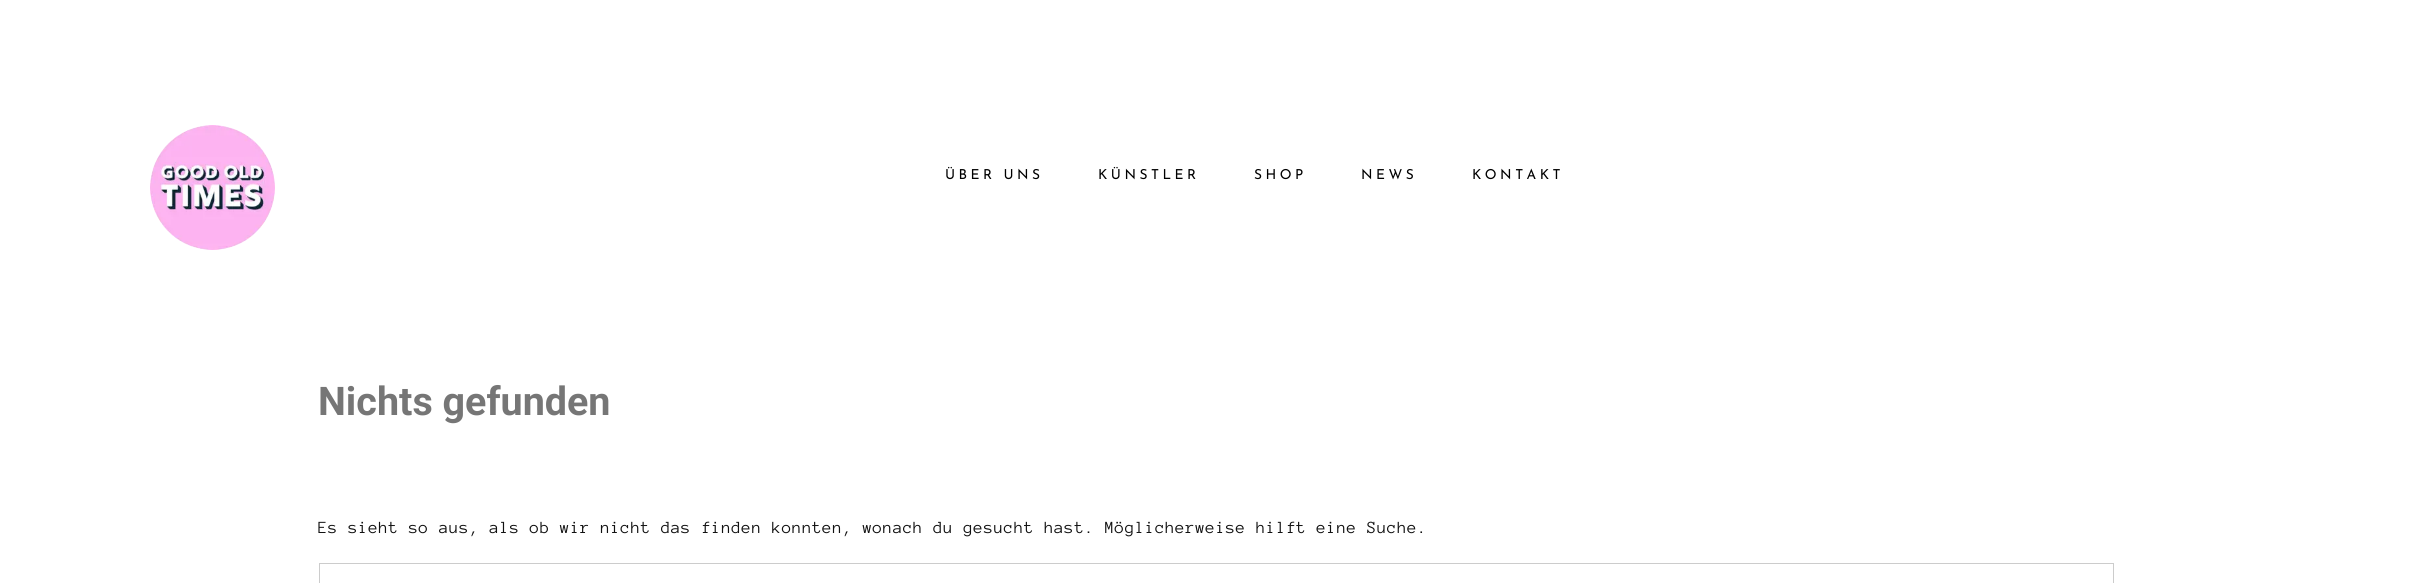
import math
import cairo


def write_spaced(ctx, x, y, s, letter, word):
	ctx.move_to(x, y)
	for ch in s:
		ctx.show_text(ch)
		ctx.rel_move_to(letter + word * (ch == ' '), 0)

def paste(ctx, path, x, y, w, h):
	ctx.save()
	ctx.set_source_surface(cairo.ImageSurface.create_from_png(path), x, y)
	ctx.rectangle(x, y, w, h)
	ctx.fill()
	ctx.restore()

def draw(ctx):
	ctx.set_source_rgb(1, 1, 1)
	ctx.paint()
	paste(ctx, 'media/1.png', 150, 125, 125, 125)
	ctx.select_font_face('Josefin Sans')
	ctx.set_font_size(13.75)
	ctx.set_source_rgb(0, 0, 0)
	for x, y, s in [
		(945, 179, 'ÜBER UNS'),
		(1098, 179, 'KÜNSTLER'),
		(1254, 179, 'SHOP'),
		(1361, 179, 'NEWS'),
		(1472, 179, 'KONTAKT'),
	]:
		write_spaced(ctx, x, y, s, 3.5, 0)
	ctx.select_font_face('Roboto', cairo.FONT_SLANT_NORMAL, cairo.FONT_WEIGHT_BOLD)
	ctx.set_font_size(39.5)
	ctx.set_source_rgb(0.463, 0.463, 0.463)
	ctx.move_to(318, 415)
	ctx.show_text('Nichts gefunden')
	ctx.select_font_face('Anonymous Pro')
	ctx.set_font_size(17.5)
	ctx.set_source_rgb(0.067, 0.067, 0.067)
	write_spaced(ctx, 318, 533, 'Es sieht so aus, als ob wir nicht das finden konnten, wonach du gesucht hast. Möglicherweise hilft eine Suche.', 0.53, 0)
	ctx.rectangle(319.5, 563.5, 1794, 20)
	ctx.set_source_rgb(0.8, 0.8, 0.8)
	ctx.set_line_width(1)
	ctx.stroke()


surface = cairo.ImageSurface(cairo.FORMAT_RGB24, 2431, 583)
ctx = cairo.Context(surface)
options = cairo.FontOptions()
options.set_hint_metrics(cairo.HINT_METRICS_OFF)
options.set_hint_style(cairo.HINT_STYLE_NONE)
ctx.set_font_options(options)
ctx.set_miter_limit(4)
draw(ctx)
surface.write_to_png('image.png')
